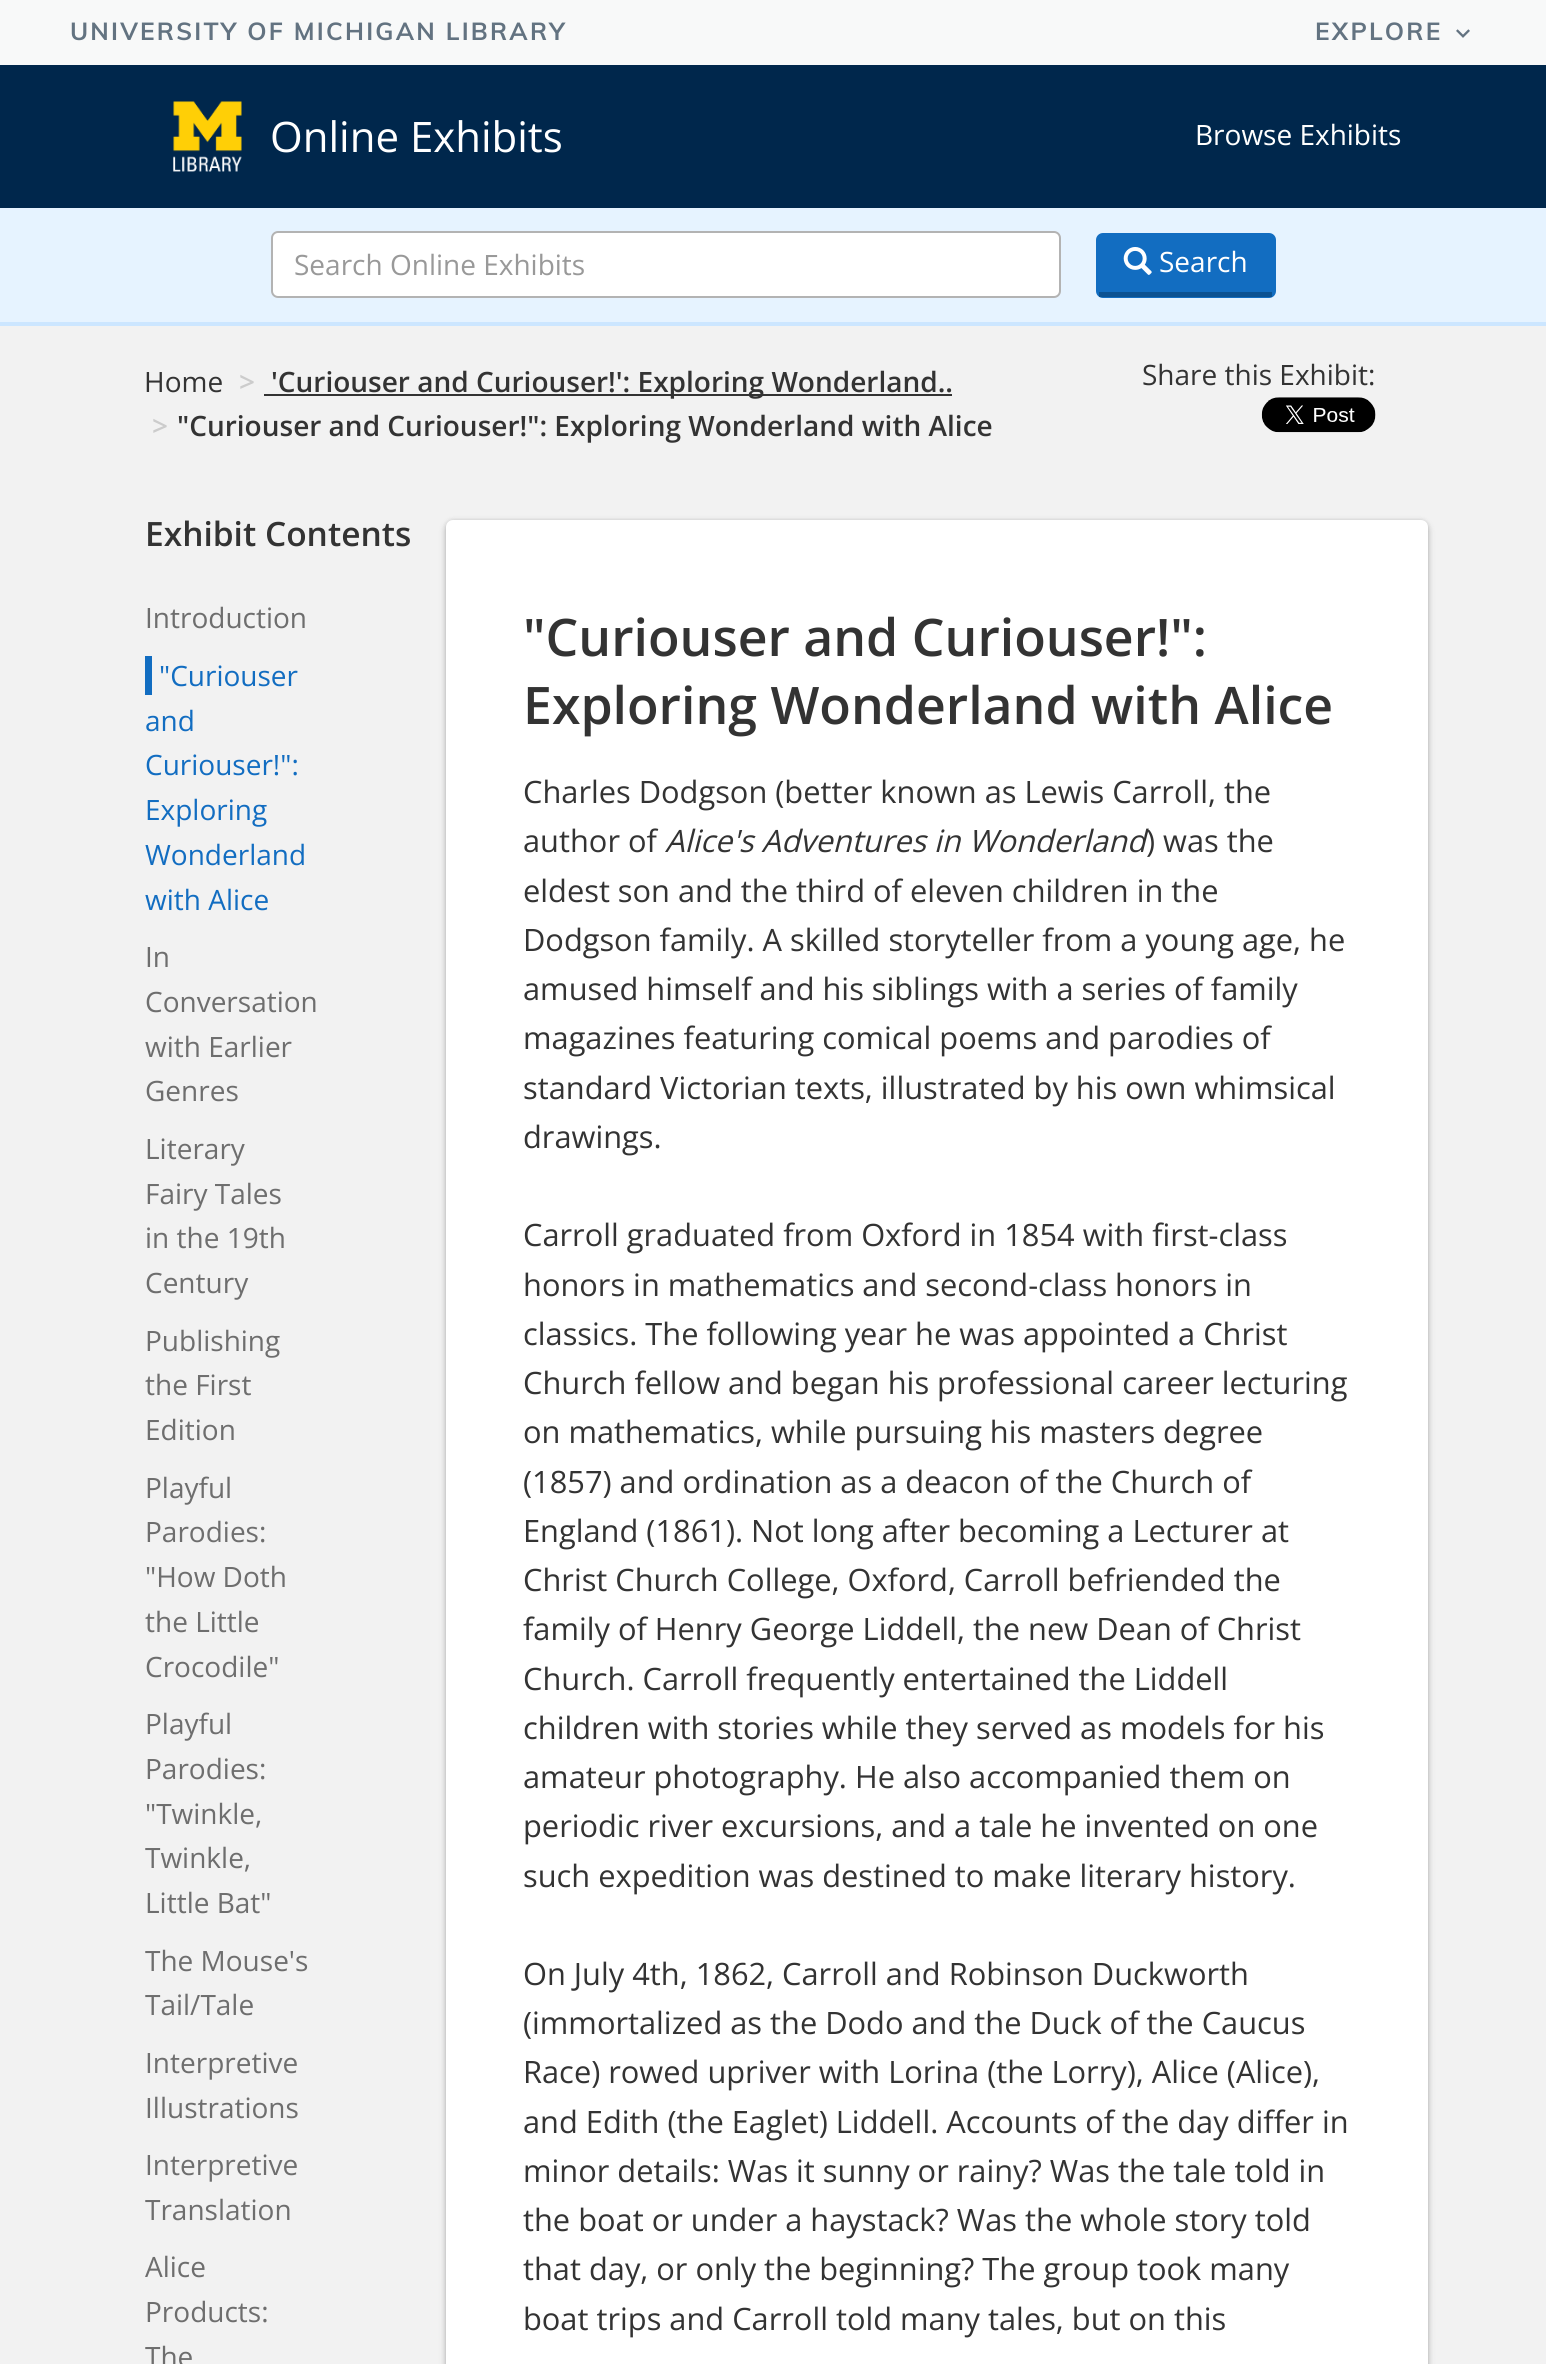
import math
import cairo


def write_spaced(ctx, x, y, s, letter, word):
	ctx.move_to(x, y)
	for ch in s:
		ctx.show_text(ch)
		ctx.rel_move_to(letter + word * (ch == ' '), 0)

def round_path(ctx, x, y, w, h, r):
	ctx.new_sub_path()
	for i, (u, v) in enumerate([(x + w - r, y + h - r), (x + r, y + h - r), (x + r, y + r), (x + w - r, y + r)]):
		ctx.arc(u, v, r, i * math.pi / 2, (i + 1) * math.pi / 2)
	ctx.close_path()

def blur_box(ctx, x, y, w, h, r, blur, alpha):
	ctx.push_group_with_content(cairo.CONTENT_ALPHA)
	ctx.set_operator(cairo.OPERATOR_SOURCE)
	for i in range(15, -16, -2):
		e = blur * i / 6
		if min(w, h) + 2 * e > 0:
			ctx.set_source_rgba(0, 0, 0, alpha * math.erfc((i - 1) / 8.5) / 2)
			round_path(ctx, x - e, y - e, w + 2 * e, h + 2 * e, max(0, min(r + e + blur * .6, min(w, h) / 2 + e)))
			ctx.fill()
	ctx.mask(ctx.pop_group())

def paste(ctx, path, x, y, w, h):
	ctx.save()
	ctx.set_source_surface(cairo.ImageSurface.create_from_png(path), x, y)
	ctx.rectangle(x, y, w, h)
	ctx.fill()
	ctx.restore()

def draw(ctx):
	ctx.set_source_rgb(0.949, 0.949, 0.949)
	ctx.paint()
	ctx.set_source_rgb(0.969, 0.973, 0.976)
	ctx.rectangle(0, 0, 1546, 65)
	ctx.fill()
	ctx.select_font_face('Muli', cairo.FONT_SLANT_NORMAL, cairo.FONT_WEIGHT_BOLD)
	ctx.set_font_size(24.5)
	ctx.set_source_rgb(0.388, 0.451, 0.506)
	write_spaced(ctx, 70, 40, 'UNIVERSITY OF MICHIGAN LIBRARY', 2.2, 0)
	write_spaced(ctx, 1315, 40, 'EXPLORE', 2.2, 0)
	paste(ctx, 'media/1.png', 1456, 29, 14, 9)
	ctx.set_source_rgb(0, 0.153, 0.298)
	ctx.rectangle(0, 65, 1546, 143)
	ctx.fill()
	paste(ctx, 'media/2.png', 173, 101, 69, 71)
	ctx.select_font_face('Open Sans')
	ctx.set_font_size(42)
	ctx.set_source_rgb(1, 1, 1)
	ctx.move_to(270, 152)
	ctx.show_text('Online Exhibits')
	ctx.set_font_size(28)
	ctx.move_to(1195, 145)
	ctx.show_text('Browse Exhibits')
	ctx.set_source_rgb(0.902, 0.953, 1)
	ctx.rectangle(0, 208, 1546, 114)
	ctx.fill()
	ctx.set_source_rgb(0.8, 0.902, 1)
	ctx.rectangle(0, 322, 1546, 4)
	ctx.fill()
	ctx.set_source_rgb(1, 1, 1)
	round_path(ctx, 271, 231, 790, 67, 7)
	ctx.fill()
	round_path(ctx, 272, 232, 788, 65, 6)
	ctx.set_source_rgba(0, 0, 0, 0.3)
	ctx.stroke()
	ctx.set_source_rgb(0.6, 0.6, 0.6)
	ctx.move_to(294, 275)
	ctx.show_text('Search Online Exhibits')
	ctx.set_source_rgb(0.071, 0.427, 0.757)
	round_path(ctx, 1096, 233, 180, 65, 7)
	ctx.fill()
	ctx.set_source_rgb(0.047, 0.322, 0.573)
	ctx.rectangle(1099, 292, 173, 5)
	ctx.fill()
	paste(ctx, 'media/3.png', 1123, 247, 29, 28)
	ctx.set_source_rgb(1, 1, 1)
	ctx.move_to(1159, 272)
	ctx.show_text('Search')
	ctx.set_source_rgb(0.2, 0.2, 0.2)
	ctx.move_to(144, 392)
	ctx.show_text('Home')
	ctx.select_font_face('Open Sans SemiBold')
	ctx.set_source_rgb(0.8, 0.8, 0.8)
	ctx.move_to(239, 392)
	ctx.show_text('>')
	ctx.set_source_rgb(0.2, 0.2, 0.2)
	ctx.rectangle(264, 394, 688, 2)
	ctx.fill()
	ctx.move_to(271, 392)
	ctx.show_text('\'Curiouser and Curiouser!\': Exploring Wonderland..')
	ctx.set_source_rgb(0.8, 0.8, 0.8)
	ctx.move_to(152, 436)
	ctx.show_text('>')
	ctx.set_source_rgb(0.2, 0.2, 0.2)
	ctx.move_to(177, 436)
	ctx.show_text('"Curiouser and Curiouser!": Exploring Wonderland with Alice')
	ctx.select_font_face('Open Sans')
	ctx.move_to(1142, 385)
	ctx.show_text('Share this Exhibit:')
	paste(ctx, 'media/4.png', 1261, 397, 115, 36)
	ctx.select_font_face('Open Sans SemiBold')
	ctx.set_font_size(33.5)
	ctx.move_to(145, 546)
	ctx.show_text('Exhibit Contents')
	ctx.select_font_face('Open Sans')
	ctx.set_font_size(28)
	ctx.set_source_rgb(0.431, 0.431, 0.431)
	ctx.move_to(145, 628)
	ctx.show_text('Introduction')
	ctx.set_source_rgb(0.071, 0.427, 0.757)
	ctx.move_to(159, 686)
	ctx.show_text('"Curiouser')
	ctx.rectangle(145, 656, 7, 39)
	ctx.fill()
	for x, y, s in [
		(145, 731, 'and'),
		(145, 775, 'Curiouser!":'),
		(145, 820, 'Exploring'),
		(145, 865, 'Wonderland'),
		(145, 910, 'with Alice'),
	]:
		ctx.move_to(x, y)
		ctx.show_text(s)
	ctx.set_source_rgb(0.431, 0.431, 0.431)
	for x, y, s in [
		(145, 967, 'In'),
		(145, 1012, 'Conversation'),
		(145, 1057, 'with Earlier'),
		(145, 1101, 'Genres'),
		(145, 1159, 'Literary'),
		(145, 1204, 'Fairy Tales'),
		(145, 1248, 'in the 19th'),
		(145, 1293, 'Century'),
		(145, 1351, 'Publishing'),
		(145, 1395, 'the First'),
		(145, 1440, 'Edition'),
		(145, 1498, 'Playful'),
		(145, 1542, 'Parodies:'),
		(145, 1587, '"How Doth'),
		(145, 1632, 'the Little'),
		(145, 1677, 'Crocodile"'),
		(145, 1734, 'Playful'),
		(145, 1779, 'Parodies:'),
		(145, 1824, '"Twinkle,'),
		(145, 1868, 'Twinkle,'),
		(145, 1913, 'Little Bat"'),
		(145, 1971, 'The Mouse\'s'),
		(145, 2015, 'Tail/Tale'),
		(145, 2073, 'Interpretive'),
		(145, 2118, 'Illustrations'),
		(145, 2175, 'Interpretive'),
		(145, 2220, 'Translation'),
		(145, 2277, 'Alice'),
		(145, 2322, 'Products:'),
		(145, 2367, 'The'),
	]:
		ctx.move_to(x, y)
		ctx.show_text(s)
	ctx.set_source_rgb(0, 0, 0)
	blur_box(ctx, 446, 523, 982, 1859, 7, 3.5, 0.24)
	blur_box(ctx, 446, 520, 982, 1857, 7, 2, 0.12)
	ctx.set_source_rgb(1, 1, 1)
	round_path(ctx, 446, 520, 982, 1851, 7)
	ctx.fill()
	ctx.select_font_face('Open Sans SemiBold')
	ctx.set_font_size(51.75)
	ctx.set_source_rgb(0.2, 0.2, 0.2)
	ctx.move_to(523, 656)
	ctx.show_text('"Curiouser and Curiouser!":')
	ctx.move_to(523, 724)
	ctx.show_text('Exploring Wonderland with Alice')
	ctx.select_font_face('Open Sans')
	ctx.set_font_size(30.8)
	ctx.move_to(523, 803)
	ctx.show_text('Charles Dodgson (better known as Lewis Carroll, the')
	ctx.move_to(523, 852)
	ctx.show_text('author of')
	ctx.select_font_face('Open Sans', cairo.FONT_SLANT_ITALIC)
	ctx.move_to(665, 852)
	ctx.show_text('Alice\'s Adventures in Wonderland')
	ctx.select_font_face('Open Sans')
	for x, y, s in [
		(1146, 852, ') was the'),
		(523, 902, 'eldest son and the third of eleven children in the'),
		(523, 951, 'Dodgson family. A skilled storyteller from a young age, he'),
		(523, 1000, 'amused himself and his siblings with a series of family'),
		(523, 1049, 'magazines featuring comical poems and parodies of'),
		(523, 1099, 'standard Victorian texts, illustrated by his own whimsical'),
		(523, 1148, 'drawings.'),
		(523, 1246, 'Carroll graduated from Oxford in 1854 with first-class'),
		(523, 1296, 'honors in mathematics and second-class honors in'),
		(523, 1345, 'classics. The following year he was appointed a Christ'),
		(523, 1394, 'Church fellow and began his professional career lecturing'),
		(523, 1443, 'on mathematics, while pursuing his masters degree'),
		(523, 1493, '(1857) and ordination as a deacon of the Church of'),
		(523, 1542, 'England (1861). Not long after becoming a Lecturer at'),
		(523, 1591, 'Christ Church College, Oxford, Carroll befriended the'),
		(523, 1640, 'family of Henry George Liddell, the new Dean of Christ'),
		(523, 1690, 'Church. Carroll frequently entertained the Liddell'),
		(523, 1739, 'children with stories while they served as models for his'),
		(523, 1788, 'amateur photography. He also accompanied them on'),
		(523, 1837, 'periodic river excursions, and a tale he invented on one'),
		(523, 1887, 'such expedition was destined to make literary history.'),
		(523, 1985, 'On July 4th, 1862, Carroll and Robinson Duckworth'),
		(523, 2034, '(immortalized as the Dodo and the Duck of the Caucus'),
		(523, 2083, 'Race) rowed upriver with Lorina (the Lorry), Alice (Alice),'),
		(523, 2133, 'and Edith (the Eaglet) Liddell. Accounts of the day differ in'),
		(523, 2182, 'minor details: Was it sunny or rainy? Was the tale told in'),
		(523, 2231, 'the boat or under a haystack? Was the whole story told'),
		(523, 2280, 'that day, or only the beginning? The group took many'),
		(523, 2330, 'boat trips and Carroll told many tales, but on this'),
	]:
		ctx.move_to(x, y)
		ctx.show_text(s)


surface = cairo.ImageSurface(cairo.FORMAT_RGB24, 1546, 2364)
ctx = cairo.Context(surface)
options = cairo.FontOptions()
options.set_hint_metrics(cairo.HINT_METRICS_OFF)
options.set_hint_style(cairo.HINT_STYLE_NONE)
ctx.set_font_options(options)
ctx.set_miter_limit(4)
draw(ctx)
surface.write_to_png('image.png')
